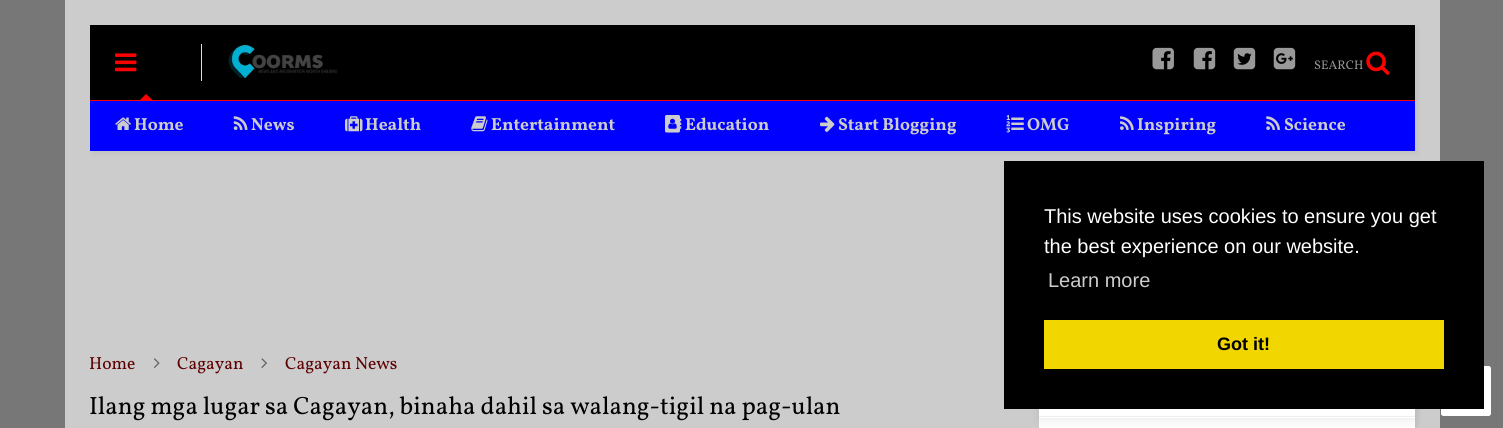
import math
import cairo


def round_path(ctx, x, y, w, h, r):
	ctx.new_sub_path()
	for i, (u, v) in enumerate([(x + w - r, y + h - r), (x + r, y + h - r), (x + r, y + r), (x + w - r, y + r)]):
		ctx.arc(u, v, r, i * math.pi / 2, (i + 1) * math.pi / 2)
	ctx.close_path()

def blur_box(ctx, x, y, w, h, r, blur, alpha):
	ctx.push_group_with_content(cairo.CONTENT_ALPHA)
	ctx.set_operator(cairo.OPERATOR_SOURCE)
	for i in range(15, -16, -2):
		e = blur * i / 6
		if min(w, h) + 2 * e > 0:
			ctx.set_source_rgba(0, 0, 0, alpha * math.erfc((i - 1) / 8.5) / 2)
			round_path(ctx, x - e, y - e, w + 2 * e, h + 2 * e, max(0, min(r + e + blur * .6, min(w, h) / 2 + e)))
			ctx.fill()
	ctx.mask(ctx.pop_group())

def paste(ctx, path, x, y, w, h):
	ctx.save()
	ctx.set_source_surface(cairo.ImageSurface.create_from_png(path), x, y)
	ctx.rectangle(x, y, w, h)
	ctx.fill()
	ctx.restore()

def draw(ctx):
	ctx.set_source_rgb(0.467, 0.467, 0.467)
	ctx.paint()
	ctx.set_source_rgb(0.8, 0.8, 0.8)
	ctx.rectangle(65, 0, 1375, 428)
	ctx.fill()
	ctx.set_source_rgb(0, 0, 0)
	blur_box(ctx, 93, 28, 1325, 126, 0, 2, 0.05)
	ctx.set_source_rgb(0, 0, 0)
	ctx.rectangle(90, 25, 1325, 75)
	ctx.fill()
	paste(ctx, 'media/1.png', 115, 53, 22, 19)
	ctx.set_source_rgb(1, 0, 0)
	ctx.new_path()
	ctx.move_to(152.5, 100)
	ctx.line_to(140, 100)
	ctx.line_to(146, 94)
	ctx.close_path()
	ctx.fill()
	ctx.set_source_rgb(0.867, 0.867, 0.867)
	ctx.rectangle(201, 44, 1, 37)
	ctx.fill()
	paste(ctx, 'media/2.png', 228, 44, 110, 35)
	paste(ctx, 'media/3.png', 1152, 47, 22, 23)
	paste(ctx, 'media/4.png', 1193, 47, 23, 23)
	paste(ctx, 'media/5.png', 1233, 47, 23, 23)
	paste(ctx, 'media/6.png', 1273, 47, 23, 23)
	ctx.select_font_face('Vollkorn')
	ctx.set_font_size(12.5)
	ctx.set_source_rgb(0.6, 0.6, 0.6)
	ctx.move_to(1314, 69)
	ctx.show_text('SEARCH')
	paste(ctx, 'media/7.png', 1366, 51, 24, 24)
	ctx.set_source_rgb(0, 0, 1)
	ctx.rectangle(90, 101, 1325, 50)
	ctx.fill()
	ctx.set_source_rgb(1, 0, 0)
	ctx.rectangle(90, 100, 1325, 1)
	ctx.fill()
	paste(ctx, 'media/8.png', 115, 117, 16, 13)
	ctx.select_font_face('Vollkorn', cairo.FONT_SLANT_NORMAL, cairo.FONT_WEIGHT_BOLD)
	ctx.set_font_size(17.5)
	ctx.set_source_rgb(0.8, 0.8, 0.8)
	ctx.move_to(134, 130)
	ctx.show_text('Home')
	paste(ctx, 'media/9.png', 233, 116, 15, 14)
	ctx.move_to(251, 130)
	ctx.show_text('News')
	paste(ctx, 'media/10.png', 345, 116, 18, 16)
	ctx.move_to(365, 130)
	ctx.show_text('Health')
	paste(ctx, 'media/11.png', 471, 116, 17, 16)
	ctx.move_to(491, 130)
	ctx.show_text('Entertainment')
	paste(ctx, 'media/12.png', 665, 115, 17, 18)
	ctx.move_to(685, 130)
	ctx.show_text('Education')
	paste(ctx, 'media/13.png', 820, 116, 15, 16)
	ctx.move_to(838, 130)
	ctx.show_text('Start Blogging')
	paste(ctx, 'media/14.png', 1006, 115, 18, 18)
	ctx.move_to(1027, 130)
	ctx.show_text('OMG')
	paste(ctx, 'media/15.png', 1120, 116, 14, 14)
	ctx.move_to(1137, 130)
	ctx.show_text('Inspiring')
	paste(ctx, 'media/16.png', 1266, 116, 14, 14)
	ctx.move_to(1284, 130)
	ctx.show_text('Science')
	ctx.select_font_face('Vollkorn')
	ctx.set_source_rgb(0.369, 0, 0)
	ctx.move_to(89, 369)
	ctx.show_text('Home')
	paste(ctx, 'media/17.png', 154, 358, 6, 10)
	ctx.move_to(177, 369)
	ctx.show_text('Cagayan')
	paste(ctx, 'media/18.png', 261, 358, 6, 10)
	ctx.move_to(285, 369)
	ctx.show_text('Cagayan News')
	ctx.set_font_size(25)
	ctx.set_source_rgb(0, 0, 0)
	ctx.move_to(89, 414)
	ctx.show_text('Ilang mga lugar sa Cagayan, binaha dahil sa walang-tigil na pag-ulan')
	ctx.set_source_rgb(0, 0, 0)
	blur_box(ctx, 1041, 354, 377, 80, 0, 2, 0.05)
	ctx.set_source_rgb(1, 1, 1)
	ctx.rectangle(1039, 409, 376, 19)
	ctx.fill()
	ctx.save()
	ctx.set_fill_rule(cairo.FILL_RULE_EVEN_ODD)
	ctx.new_path()
	ctx.move_to(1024, 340)
	ctx.line_to(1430, 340)
	ctx.line_to(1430, 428)
	ctx.line_to(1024, 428)
	ctx.close_path()
	ctx.move_to(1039, 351)
	ctx.line_to(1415, 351)
	ctx.line_to(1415, 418)
	ctx.line_to(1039, 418)
	ctx.close_path()
	ctx.clip()
	ctx.set_source_rgb(0, 0, 0)
	blur_box(ctx, 1039, 355, 376, 66, 0, 4.5, 0.07)
	ctx.restore()
	ctx.set_source_rgb(0.933, 0.933, 0.933)
	ctx.rectangle(1039, 416, 376, 1)
	ctx.fill()
	ctx.set_source_rgb(1, 1, 1)
	round_path(ctx, 1441, 366, 50, 50, 2.5)
	ctx.fill()
	ctx.set_source_rgb(0, 0, 0)
	ctx.rectangle(1004, 161, 480, 248)
	ctx.fill()
	ctx.select_font_face('Liberation Sans')
	ctx.set_font_size(20)
	ctx.set_source_rgb(1, 1, 1)
	ctx.move_to(1044, 223)
	ctx.show_text('This website uses cookies to ensure you get')
	ctx.move_to(1044, 253)
	ctx.show_text('the best experience on our website.')
	ctx.set_source_rgb(0.8, 0.8, 0.8)
	ctx.move_to(1048, 287)
	ctx.show_text('Learn more')
	ctx.set_source_rgb(0.945, 0.839, 0)
	ctx.rectangle(1044, 320, 400, 49)
	ctx.fill()
	ctx.select_font_face('Liberation Sans', cairo.FONT_SLANT_NORMAL, cairo.FONT_WEIGHT_BOLD)
	ctx.set_font_size(18)
	ctx.set_source_rgb(0, 0, 0)
	ctx.move_to(1217, 350)
	ctx.show_text('Got it!')


surface = cairo.ImageSurface(cairo.FORMAT_RGB24, 1503, 428)
ctx = cairo.Context(surface)
options = cairo.FontOptions()
options.set_hint_metrics(cairo.HINT_METRICS_OFF)
options.set_hint_style(cairo.HINT_STYLE_NONE)
ctx.set_font_options(options)
ctx.set_miter_limit(4)
draw(ctx)
surface.write_to_png('image.png')
